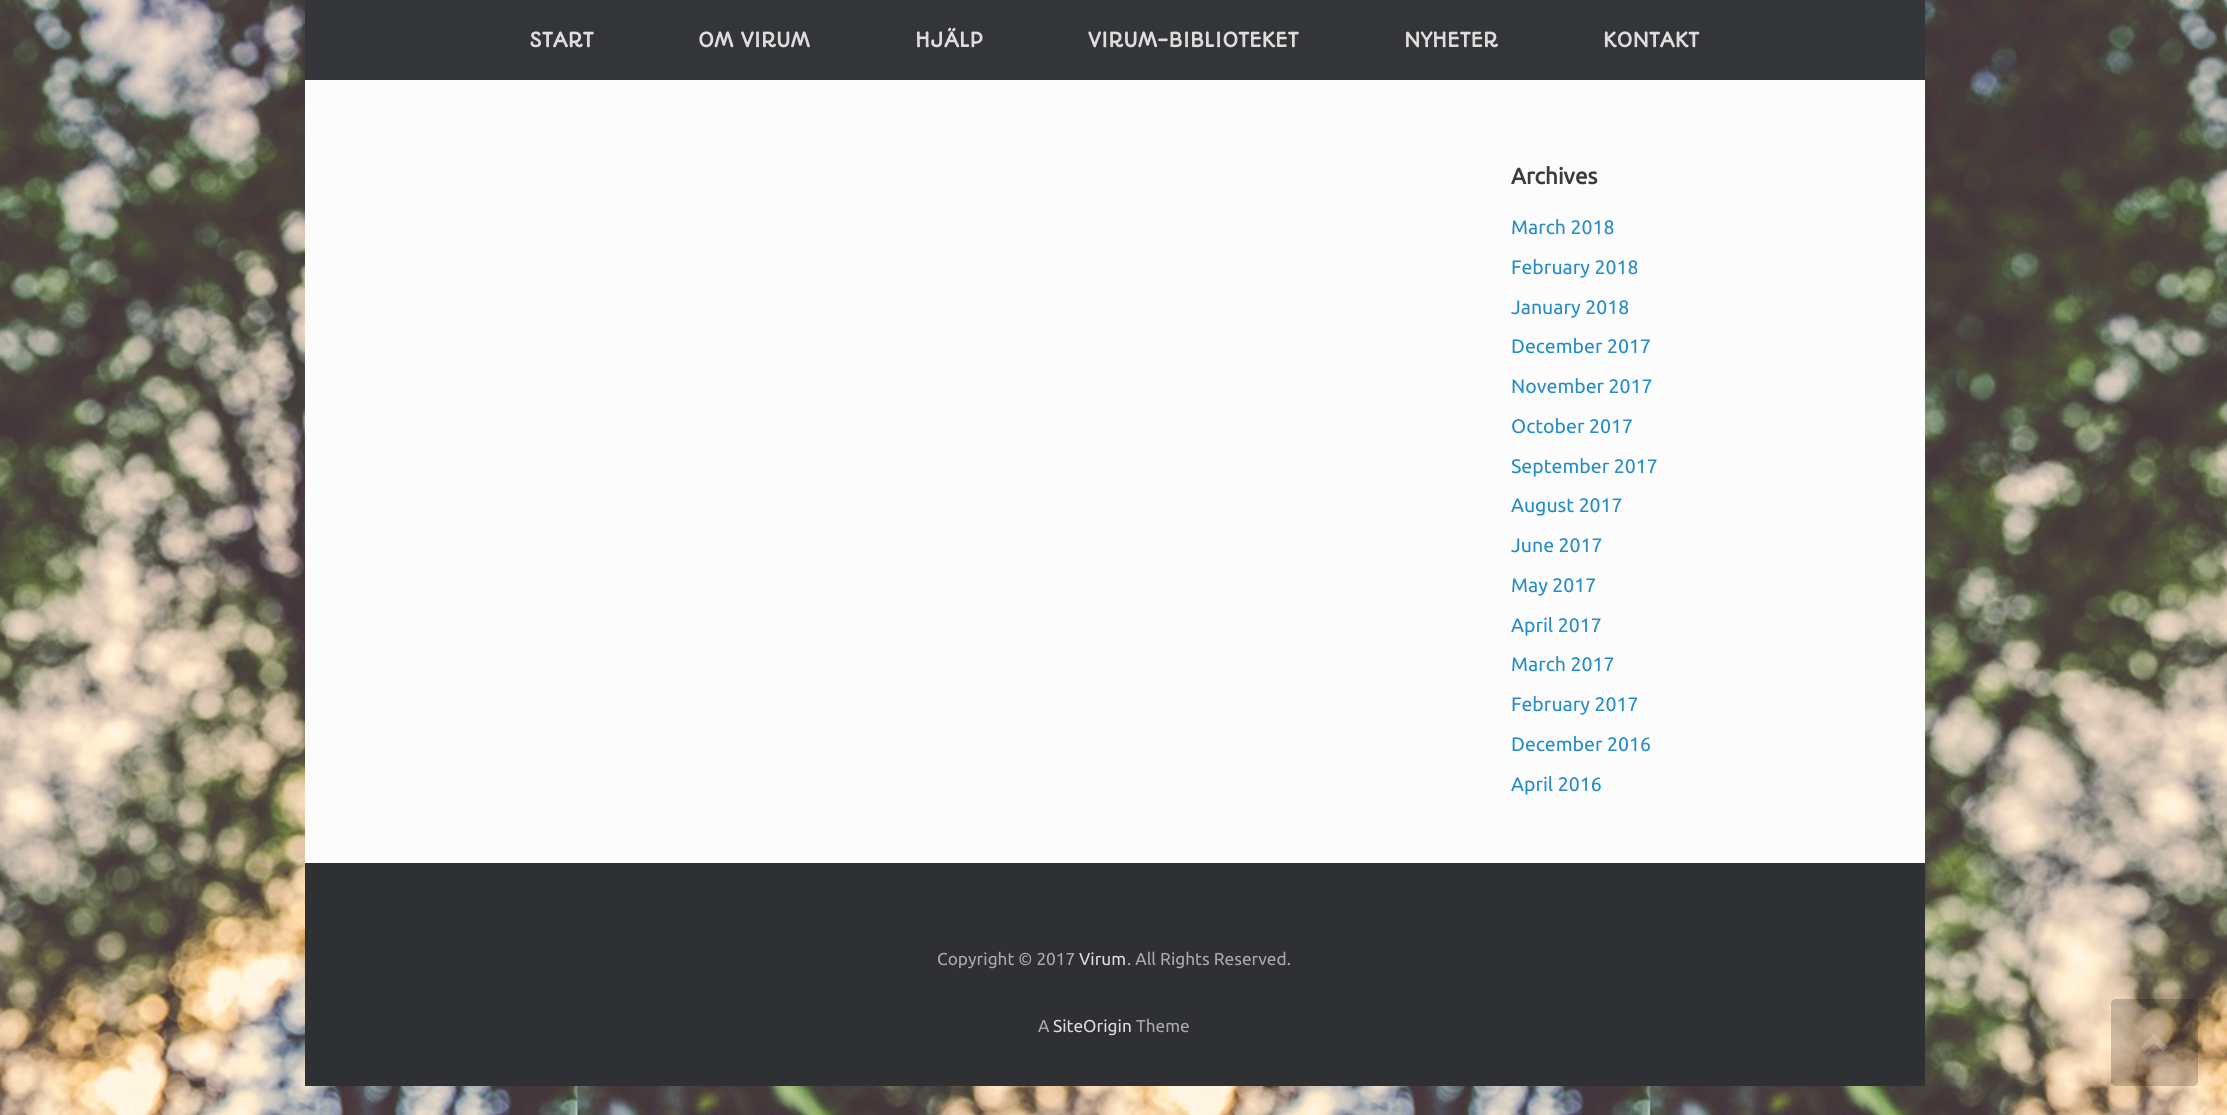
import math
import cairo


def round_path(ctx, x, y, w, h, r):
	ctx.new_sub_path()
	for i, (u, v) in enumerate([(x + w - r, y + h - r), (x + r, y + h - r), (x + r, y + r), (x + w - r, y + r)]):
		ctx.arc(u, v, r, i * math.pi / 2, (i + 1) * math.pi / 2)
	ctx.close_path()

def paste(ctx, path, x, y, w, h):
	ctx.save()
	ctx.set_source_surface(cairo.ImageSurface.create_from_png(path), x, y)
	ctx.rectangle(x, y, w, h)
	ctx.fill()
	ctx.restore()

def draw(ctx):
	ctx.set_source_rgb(1, 1, 1)
	ctx.paint()
	paste(ctx, 'media/1.png', 0, 0, 2227, 1115)
	ctx.set_source_rgb(0.204, 0.208, 0.22)
	ctx.rectangle(305, 0, 1620, 80)
	ctx.fill()
	ctx.select_font_face('Autour One', cairo.FONT_SLANT_NORMAL, cairo.FONT_WEIGHT_BOLD)
	ctx.set_font_size(19.5)
	ctx.set_source_rgb(0.867, 0.867, 0.867)
	for x, y, s in [
		(529, 47, 'START'),
		(698, 47, 'OM VIRUM'),
		(915, 47, 'HJÄLP'),
		(1088, 47, 'VIRUM-BIBLIOTEKET'),
		(1404, 47, 'NYHETER'),
		(1603, 47, 'KONTAKT'),
	]:
		ctx.move_to(x, y)
		ctx.show_text(s)
	ctx.set_source_rgb(0.988, 0.988, 0.988)
	ctx.rectangle(305, 80, 1620, 783)
	ctx.fill()
	ctx.select_font_face('Ubuntu', cairo.FONT_SLANT_NORMAL, cairo.FONT_WEIGHT_BOLD)
	ctx.set_font_size(22.5)
	ctx.set_source_rgb(0.231, 0.231, 0.231)
	ctx.move_to(1511, 184)
	ctx.show_text('Archives')
	ctx.select_font_face('Ubuntu')
	ctx.set_font_size(19.5)
	ctx.set_source_rgb(0.141, 0.549, 0.784)
	for x, y, s in [
		(1511, 234, 'March 2018'),
		(1511, 274, 'February 2018'),
		(1511, 314, 'January 2018'),
		(1511, 353, 'December 2017'),
		(1511, 393, 'November 2017'),
		(1511, 433, 'October 2017'),
		(1511, 473, 'September 2017'),
		(1511, 512, 'August 2017'),
		(1511, 552, 'June 2017'),
		(1511, 592, 'May 2017'),
		(1511, 632, 'April 2017'),
		(1511, 671, 'March 2017'),
		(1511, 711, 'February 2017'),
		(1511, 751, 'December 2016'),
		(1511, 791, 'April 2016'),
	]:
		ctx.move_to(x, y)
		ctx.show_text(s)
	ctx.set_source_rgb(0.184, 0.188, 0.2)
	ctx.rectangle(305, 863, 1620, 223)
	ctx.fill()
	ctx.set_font_size(17.25)
	ctx.set_source_rgb(0.667, 0.667, 0.667)
	ctx.move_to(937, 965)
	ctx.show_text('Copyright © 2017')
	ctx.set_source_rgb(0.867, 0.867, 0.867)
	ctx.move_to(1079, 965)
	ctx.show_text('Virum')
	ctx.set_source_rgb(0.667, 0.667, 0.667)
	ctx.move_to(1127, 965)
	ctx.show_text('. All Rights Reserved.')
	ctx.move_to(1038, 1032)
	ctx.show_text('A')
	ctx.set_source_rgb(0.867, 0.867, 0.867)
	ctx.move_to(1053, 1032)
	ctx.show_text('SiteOrigin')
	ctx.set_source_rgb(0.667, 0.667, 0.667)
	ctx.move_to(1136, 1032)
	ctx.show_text('Theme')
	ctx.set_source_rgba(0, 0, 0, 0.2)
	round_path(ctx, 2111, 999, 87, 87, 5)
	ctx.fill()
	ctx.set_source_rgba(1, 1, 1, 0.2)
	ctx.new_path()
	ctx.move_to(2167.5, 1047)
	ctx.line_to(2154, 1033.5)
	ctx.line_to(2140.5, 1047)
	ctx.line_to(2145, 1051.5)
	ctx.line_to(2154, 1042.5)
	ctx.line_to(2163, 1051.5)
	ctx.close_path()
	ctx.fill()


surface = cairo.ImageSurface(cairo.FORMAT_RGB24, 2227, 1115)
ctx = cairo.Context(surface)
options = cairo.FontOptions()
options.set_hint_metrics(cairo.HINT_METRICS_OFF)
options.set_hint_style(cairo.HINT_STYLE_NONE)
ctx.set_font_options(options)
ctx.set_miter_limit(4)
draw(ctx)
surface.write_to_png('image.png')
